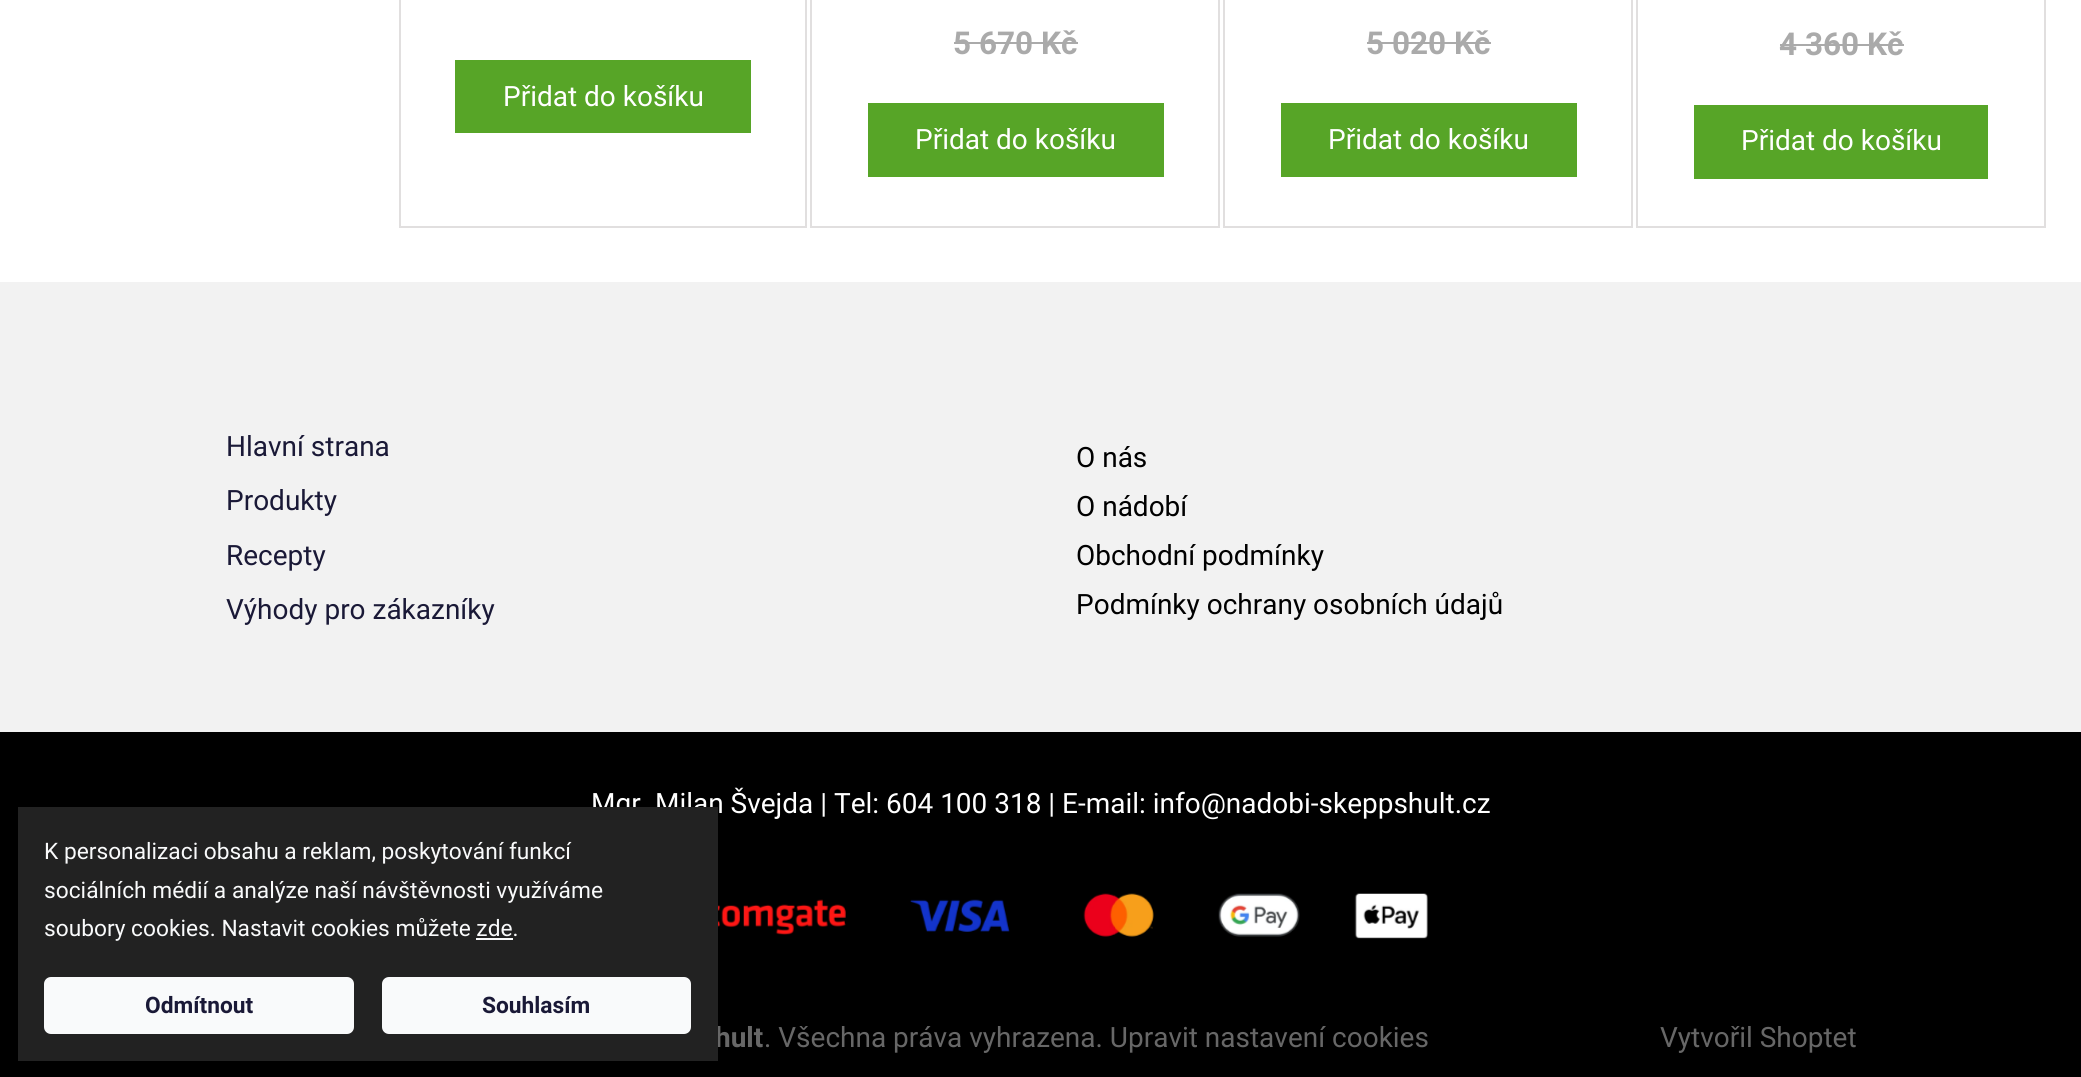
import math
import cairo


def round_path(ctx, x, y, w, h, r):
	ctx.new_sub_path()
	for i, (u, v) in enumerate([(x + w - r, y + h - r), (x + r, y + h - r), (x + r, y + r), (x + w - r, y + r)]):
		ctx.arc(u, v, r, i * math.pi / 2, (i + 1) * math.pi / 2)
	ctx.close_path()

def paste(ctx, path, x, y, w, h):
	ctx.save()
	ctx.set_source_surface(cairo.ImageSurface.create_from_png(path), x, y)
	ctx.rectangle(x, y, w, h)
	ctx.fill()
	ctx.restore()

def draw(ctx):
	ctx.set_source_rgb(1, 1, 1)
	ctx.paint()
	ctx.rectangle(400, -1, 406, 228)
	ctx.set_source_rgb(0.882, 0.875, 0.875)
	ctx.stroke()
	ctx.set_source_rgb(0.341, 0.647, 0.153)
	ctx.rectangle(455, 60, 296, 73)
	ctx.fill()
	ctx.select_font_face('Roboto')
	ctx.set_font_size(28)
	ctx.set_source_rgb(1, 1, 1)
	ctx.move_to(503, 106)
	ctx.show_text('Přidat do košíku')
	ctx.rectangle(811, -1, 408, 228)
	ctx.set_source_rgb(0.882, 0.875, 0.875)
	ctx.stroke()
	ctx.select_font_face('Roboto', cairo.FONT_SLANT_NORMAL, cairo.FONT_WEIGHT_BOLD)
	ctx.set_font_size(31.5)
	ctx.set_source_rgb(0.667, 0.667, 0.667)
	ctx.move_to(953, 54)
	ctx.show_text('5 670 Kč')
	ctx.rectangle(954, 42, 124, 2)
	ctx.fill()
	ctx.set_source_rgb(0.341, 0.647, 0.153)
	ctx.rectangle(868, 103, 296, 74)
	ctx.fill()
	ctx.select_font_face('Roboto')
	ctx.set_font_size(28)
	ctx.set_source_rgb(1, 1, 1)
	ctx.move_to(915, 149)
	ctx.show_text('Přidat do košíku')
	ctx.rectangle(1224, -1, 408, 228)
	ctx.set_source_rgb(0.882, 0.875, 0.875)
	ctx.stroke()
	ctx.select_font_face('Roboto', cairo.FONT_SLANT_NORMAL, cairo.FONT_WEIGHT_BOLD)
	ctx.set_font_size(31.5)
	ctx.set_source_rgb(0.667, 0.667, 0.667)
	ctx.move_to(1366, 54)
	ctx.show_text('5 020 Kč')
	ctx.rectangle(1367, 42, 124, 2)
	ctx.fill()
	ctx.set_source_rgb(0.341, 0.647, 0.153)
	ctx.rectangle(1281, 103, 296, 74)
	ctx.fill()
	ctx.select_font_face('Roboto')
	ctx.set_font_size(28)
	ctx.set_source_rgb(1, 1, 1)
	ctx.move_to(1328, 149)
	ctx.show_text('Přidat do košíku')
	ctx.rectangle(1637, -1, 408, 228)
	ctx.set_source_rgb(0.882, 0.875, 0.875)
	ctx.stroke()
	ctx.select_font_face('Roboto', cairo.FONT_SLANT_NORMAL, cairo.FONT_WEIGHT_BOLD)
	ctx.set_font_size(31.5)
	ctx.set_source_rgb(0.667, 0.667, 0.667)
	ctx.move_to(1779, 55)
	ctx.show_text('4 360 Kč')
	ctx.rectangle(1780, 44, 124, 2)
	ctx.fill()
	ctx.set_source_rgb(0.341, 0.647, 0.153)
	ctx.rectangle(1694, 105, 294, 74)
	ctx.fill()
	ctx.select_font_face('Roboto')
	ctx.set_font_size(28)
	ctx.set_source_rgb(1, 1, 1)
	ctx.move_to(1741, 150)
	ctx.show_text('Přidat do košíku')
	ctx.set_source_rgb(0.949, 0.949, 0.949)
	ctx.rectangle(0, 282, 2081, 450)
	ctx.fill()
	ctx.set_source_rgb(0.102, 0.098, 0.216)
	for x, y, s in [
		(226, 456, 'Hlavní strana'),
		(226, 510, 'Produkty'),
		(226, 565, 'Recepty'),
		(226, 619, 'Výhody pro zákazníky'),
	]:
		ctx.move_to(x, y)
		ctx.show_text(s)
	ctx.set_source_rgb(0, 0, 0)
	for x, y, s in [
		(1076, 467, 'O nás'),
		(1076, 516, 'O nádobí'),
		(1076, 565, 'Obchodní podmínky'),
		(1076, 614, 'Podmínky ochrany osobních údajů'),
	]:
		ctx.move_to(x, y)
		ctx.show_text(s)
	ctx.rectangle(0, 732, 2081, 345)
	ctx.fill()
	ctx.set_source_rgb(1, 1, 1)
	ctx.move_to(591, 813)
	ctx.show_text('Mgr. Milan Švejda | Tel: 604 100 318 | E-mail: info@nadobi-skeppshult.cz')
	paste(ctx, 'media/1.png', 718, 891, 710, 49)
	ctx.select_font_face('Roboto', cairo.FONT_SLANT_NORMAL, cairo.FONT_WEIGHT_BOLD)
	ctx.set_source_rgb(0.404, 0.404, 0.404)
	ctx.move_to(715, 1047)
	ctx.show_text('hult')
	ctx.select_font_face('Roboto')
	ctx.move_to(764, 1047)
	ctx.show_text('. Všechna práva vyhrazena. Upravit nastavení cookies')
	ctx.move_to(1660, 1047)
	ctx.show_text('Vytvořil Shoptet')
	ctx.set_source_rgb(0.133, 0.133, 0.133)
	ctx.rectangle(18, 807, 700, 254)
	ctx.fill()
	ctx.set_font_size(22.75)
	ctx.set_source_rgb(0.973, 0.98, 0.984)
	for x, y, s in [
		(44, 859, 'K personalizaci obsahu a reklam, poskytování funkcí'),
		(44, 898, 'sociálních médií a analýze naší návštěvnosti využíváme'),
		(44, 936, 'soubory cookies. Nastavit cookies můžete zde.'),
	]:
		ctx.move_to(x, y)
		ctx.show_text(s)
	ctx.rectangle(476, 938, 37, 2)
	ctx.fill()
	round_path(ctx, 44, 977, 310, 57, 7)
	ctx.fill()
	ctx.select_font_face('Roboto', cairo.FONT_SLANT_NORMAL, cairo.FONT_WEIGHT_BOLD)
	ctx.set_source_rgb(0.102, 0.098, 0.216)
	ctx.move_to(145, 1013)
	ctx.show_text('Odmítnout')
	ctx.set_source_rgb(0.973, 0.98, 0.984)
	round_path(ctx, 382, 977, 309, 57, 7)
	ctx.fill()
	ctx.set_source_rgb(0.102, 0.098, 0.216)
	ctx.move_to(482, 1013)
	ctx.show_text('Souhlasím')


surface = cairo.ImageSurface(cairo.FORMAT_RGB24, 2081, 1077)
ctx = cairo.Context(surface)
options = cairo.FontOptions()
options.set_hint_metrics(cairo.HINT_METRICS_OFF)
options.set_hint_style(cairo.HINT_STYLE_NONE)
ctx.set_font_options(options)
ctx.set_miter_limit(4)
draw(ctx)
surface.write_to_png('image.png')
